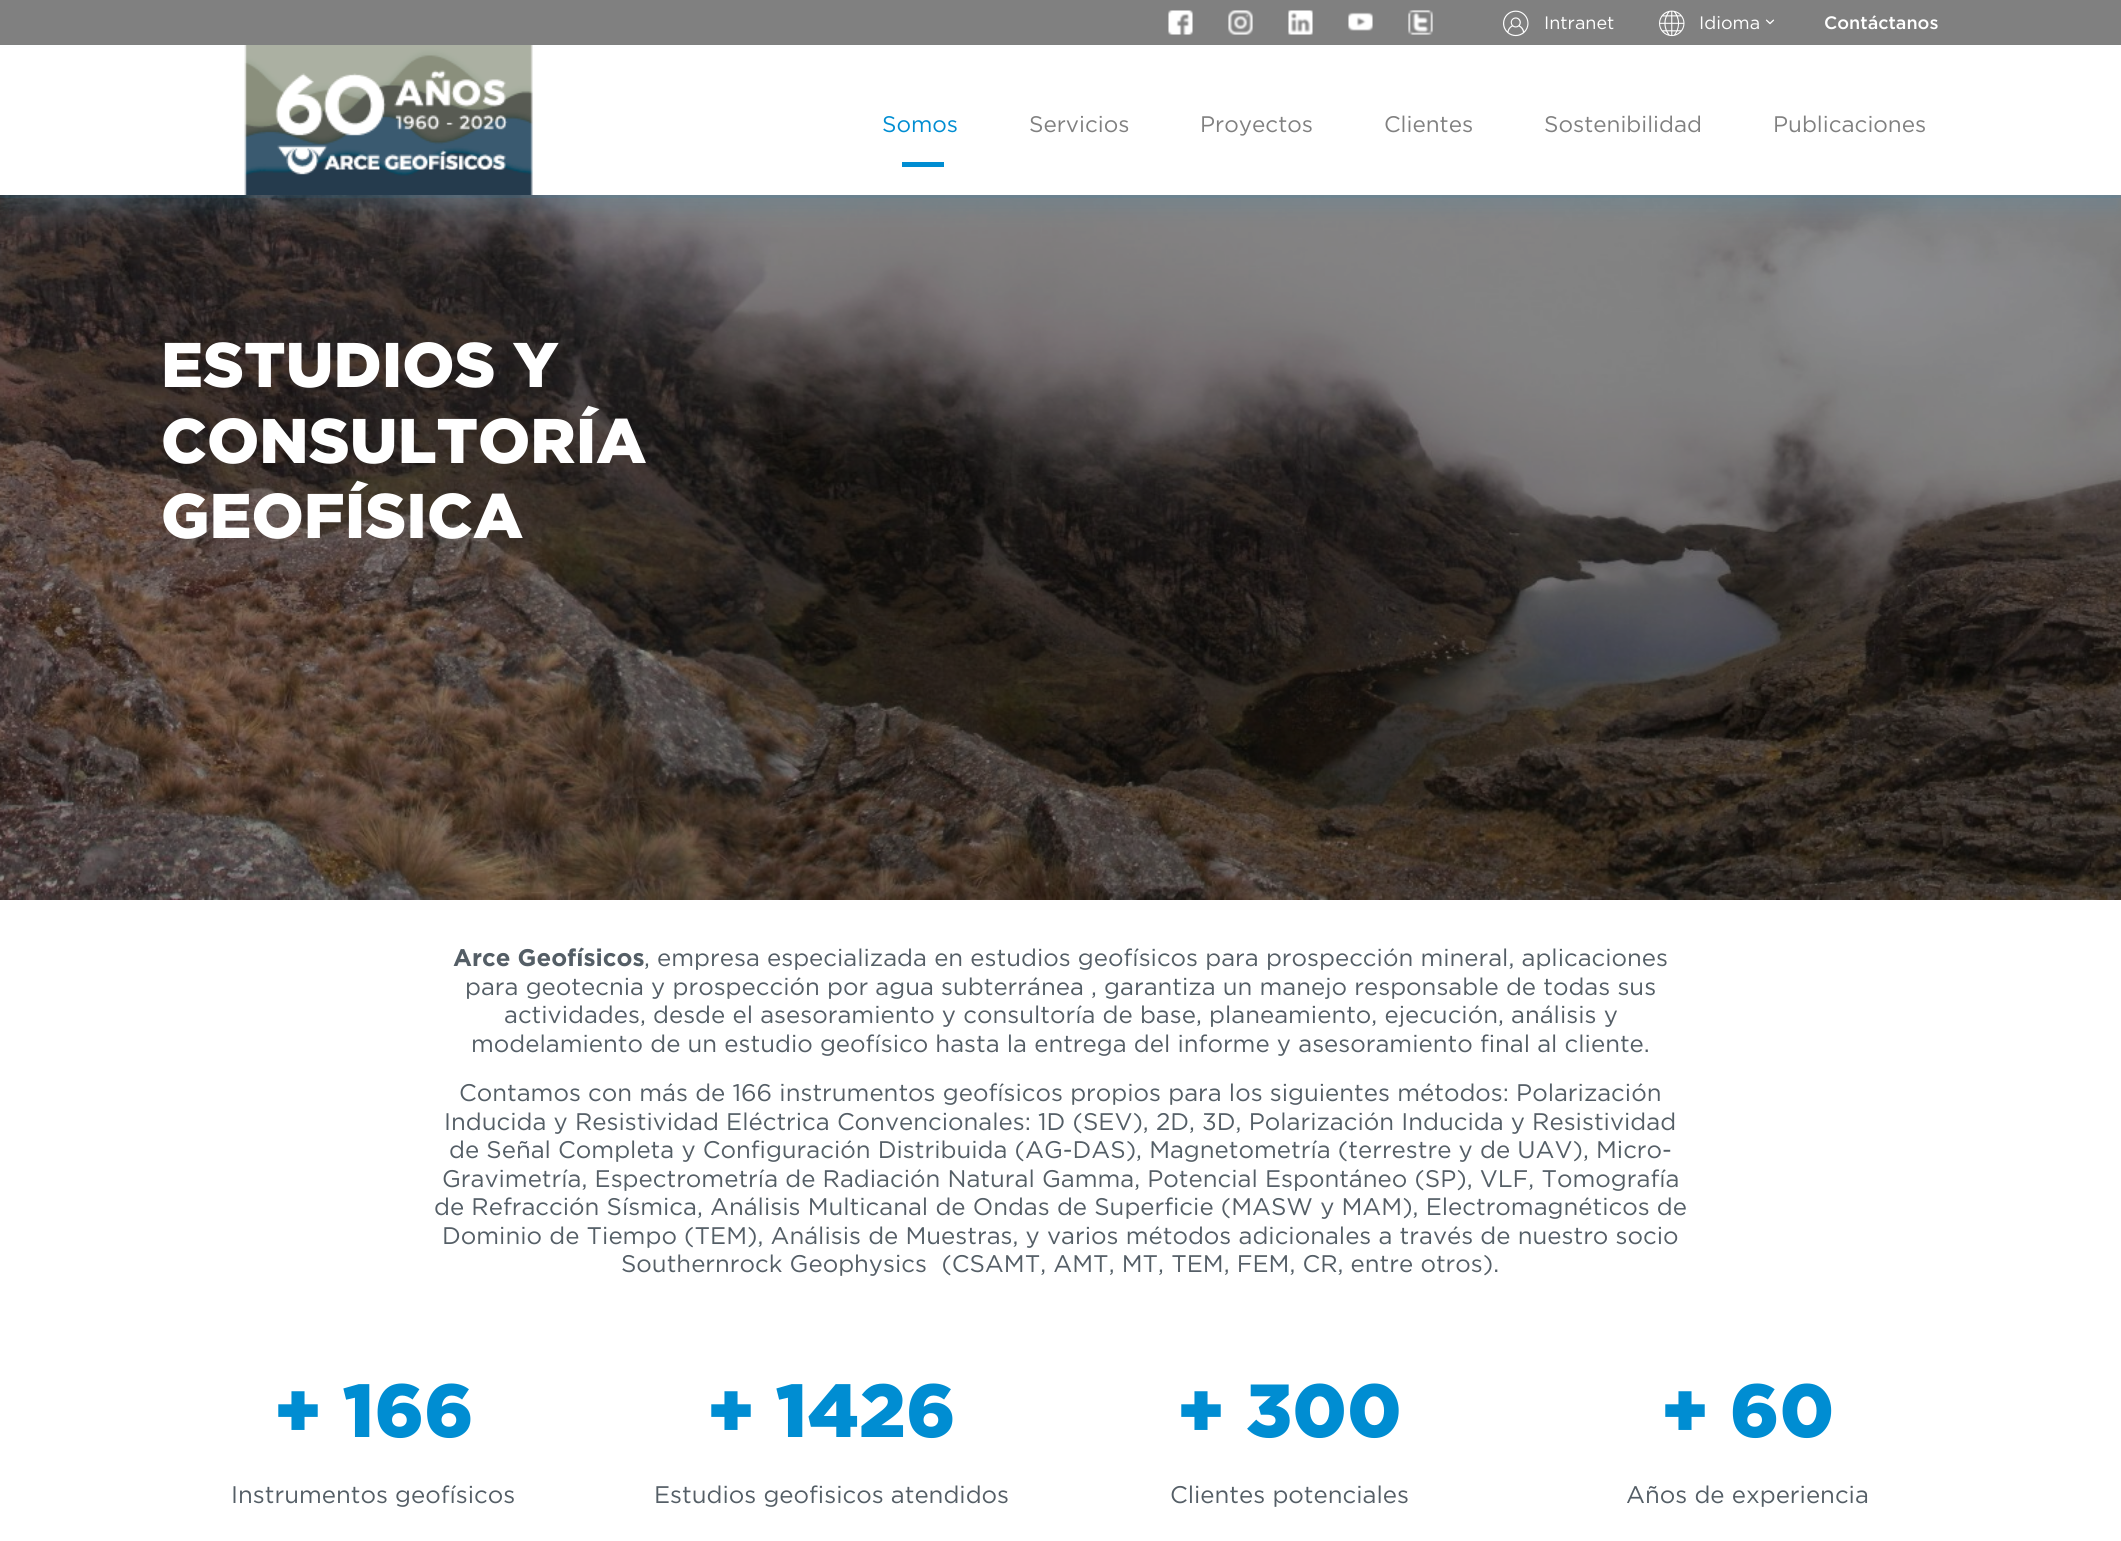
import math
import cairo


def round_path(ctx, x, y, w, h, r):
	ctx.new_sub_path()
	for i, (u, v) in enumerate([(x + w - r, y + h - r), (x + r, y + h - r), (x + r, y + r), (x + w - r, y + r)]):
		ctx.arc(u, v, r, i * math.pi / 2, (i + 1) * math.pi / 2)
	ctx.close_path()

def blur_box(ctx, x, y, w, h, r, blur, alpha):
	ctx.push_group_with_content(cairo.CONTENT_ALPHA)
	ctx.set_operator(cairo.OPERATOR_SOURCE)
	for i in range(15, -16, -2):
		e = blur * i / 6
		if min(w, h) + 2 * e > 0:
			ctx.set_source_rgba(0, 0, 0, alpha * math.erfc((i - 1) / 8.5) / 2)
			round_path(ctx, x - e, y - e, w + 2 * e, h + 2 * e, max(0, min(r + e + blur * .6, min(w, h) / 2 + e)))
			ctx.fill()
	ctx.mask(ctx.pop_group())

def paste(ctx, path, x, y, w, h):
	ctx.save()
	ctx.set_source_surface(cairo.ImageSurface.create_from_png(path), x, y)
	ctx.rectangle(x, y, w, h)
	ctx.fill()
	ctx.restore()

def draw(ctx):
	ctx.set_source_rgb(1, 1, 1)
	ctx.paint()
	ctx.set_source_rgb(0.502, 0.502, 0.502)
	ctx.rectangle(0, 0, 2121, 45)
	ctx.fill()
	paste(ctx, 'media/1.png', 1168, 10, 25, 25)
	paste(ctx, 'media/2.png', 1228, 10, 25, 25)
	paste(ctx, 'media/3.png', 1288, 10, 25, 25)
	paste(ctx, 'media/4.png', 1348, 12, 25, 19)
	paste(ctx, 'media/5.png', 1408, 10, 25, 25)
	paste(ctx, 'media/6.png', 1503, 10, 26, 27)
	ctx.select_font_face('Gotham')
	ctx.set_font_size(18)
	ctx.set_source_rgb(1, 1, 1)
	ctx.move_to(1544, 29)
	ctx.show_text('Intranet')
	paste(ctx, 'media/7.png', 1659, 10, 26, 27)
	ctx.move_to(1699, 29)
	ctx.show_text('Idioma')
	paste(ctx, 'media/8.png', 1765, 19, 10, 6)
	ctx.select_font_face('Gotham Medium')
	ctx.move_to(1824, 29)
	ctx.show_text('Contáctanos')
	paste(ctx, 'media/10.png', 0, 195, 2121, 705)
	ctx.set_source_rgb(0, 0.553, 0.824)
	blur_box(ctx, 0, 60, 2121, 150, 0, 9, 0.1)
	ctx.set_source_rgba(0, 0.545, 0.824, 0.09)
	ctx.rectangle(0, 195, 2121, 3)
	ctx.fill()
	ctx.set_source_rgb(1, 1, 1)
	ctx.rectangle(0, 48, 2121, 147)
	ctx.fill()
	paste(ctx, 'media/9.png', 244, 45, 289, 150)
	ctx.select_font_face('Gotham')
	ctx.set_font_size(22.5)
	ctx.set_source_rgb(0, 0.553, 0.824)
	ctx.move_to(882, 132)
	ctx.show_text('Somos')
	ctx.rectangle(902, 162, 42, 5)
	ctx.fill()
	ctx.set_source_rgb(0.502, 0.502, 0.502)
	for x, y, s in [
		(1029, 132, 'Servicios'),
		(1200, 132, 'Proyectos'),
		(1384, 132, 'Clientes'),
		(1544, 132, 'Sostenibilidad'),
		(1773, 132, 'Publicaciones'),
	]:
		ctx.move_to(x, y)
		ctx.show_text(s)
	ctx.select_font_face('Gotham Black')
	ctx.set_font_size(63)
	ctx.set_source_rgb(1, 1, 1)
	for x, y, s in [
		(161, 387, 'ESTUDIOS Y'),
		(161, 463, 'CONSULTORÍA'),
		(161, 538, 'GEOFÍSICA'),
	]:
		ctx.move_to(x, y)
		ctx.show_text(s)
	ctx.select_font_face('Gotham', cairo.FONT_SLANT_NORMAL, cairo.FONT_WEIGHT_BOLD)
	ctx.set_font_size(24)
	ctx.set_source_rgb(0.329, 0.369, 0.4)
	ctx.move_to(453, 966)
	ctx.show_text('Arce Geofísicos')
	ctx.select_font_face('Gotham')
	for x, y, s in [
		(644, 966, ', empresa especializada en estudios geofísicos para prospección mineral, aplicaciones'),
		(465, 995, 'para geotecnia y prospección por agua subterránea , garantiza un manejo responsable de todas sus'),
		(504, 1023, 'actividades, desde el asesoramiento y consultoría de base, planeamiento, ejecución, análisis y'),
		(471, 1052, 'modelamiento de un estudio geofísico hasta la entrega del informe y asesoramiento final al cliente.'),
		(459, 1101, 'Contamos con más de 166 instrumentos geofísicos propios para los siguientes métodos: Polarización'),
		(444, 1130, 'Inducida y Resistividad Eléctrica Convencionales: 1D (SEV), 2D, 3D, Polarización Inducida y Resistividad'),
		(449, 1158, 'de Señal Completa y Configuración Distribuida (AG-DAS), Magnetometría (terrestre y de UAV), Micro-'),
		(442, 1187, 'Gravimetría, Espectrometría de Radiación Natural Gamma, Potencial Espontáneo (SP), VLF, Tomografía'),
		(434, 1215, 'de Refracción Sísmica, Análisis Multicanal de Ondas de Superficie (MASW y MAM), Electromagnéticos de'),
		(442, 1244, 'Dominio de Tiempo (TEM), Análisis de Muestras, y varios métodos adicionales a través de nuestro socio'),
		(621, 1272, 'Southernrock Geophysics  (CSAMT, AMT, MT, TEM, FEM, CR, entre otros).'),
	]:
		ctx.move_to(x, y)
		ctx.show_text(s)
	ctx.select_font_face('Gotham Black')
	ctx.set_font_size(75)
	ctx.set_source_rgb(0, 0.553, 0.824)
	ctx.move_to(274, 1437)
	ctx.show_text('+ 166')
	ctx.select_font_face('Gotham')
	ctx.set_font_size(24)
	ctx.set_source_rgb(0.329, 0.369, 0.4)
	ctx.move_to(231, 1503)
	ctx.show_text('Instrumentos geofísicos')
	ctx.select_font_face('Gotham Black')
	ctx.set_font_size(75)
	ctx.set_source_rgb(0, 0.553, 0.824)
	ctx.move_to(707, 1437)
	ctx.show_text('+ 1426')
	ctx.select_font_face('Gotham')
	ctx.set_font_size(24)
	ctx.set_source_rgb(0.329, 0.369, 0.4)
	ctx.move_to(654, 1503)
	ctx.show_text('Estudios geofisicos atendidos')
	ctx.select_font_face('Gotham Black')
	ctx.set_font_size(75)
	ctx.set_source_rgb(0, 0.553, 0.824)
	ctx.move_to(1177, 1437)
	ctx.show_text('+ 300')
	ctx.select_font_face('Gotham')
	ctx.set_font_size(24)
	ctx.set_source_rgb(0.329, 0.369, 0.4)
	ctx.move_to(1170, 1503)
	ctx.show_text('Clientes potenciales')
	ctx.select_font_face('Gotham Black')
	ctx.set_font_size(75)
	ctx.set_source_rgb(0, 0.553, 0.824)
	ctx.move_to(1661, 1437)
	ctx.show_text('+ 60')
	ctx.select_font_face('Gotham')
	ctx.set_font_size(24)
	ctx.set_source_rgb(0.329, 0.369, 0.4)
	ctx.move_to(1626, 1503)
	ctx.show_text('Años de experiencia')


surface = cairo.ImageSurface(cairo.FORMAT_RGB24, 2121, 1541)
ctx = cairo.Context(surface)
options = cairo.FontOptions()
options.set_hint_metrics(cairo.HINT_METRICS_OFF)
options.set_hint_style(cairo.HINT_STYLE_NONE)
ctx.set_font_options(options)
ctx.set_miter_limit(4)
draw(ctx)
surface.write_to_png('image.png')
